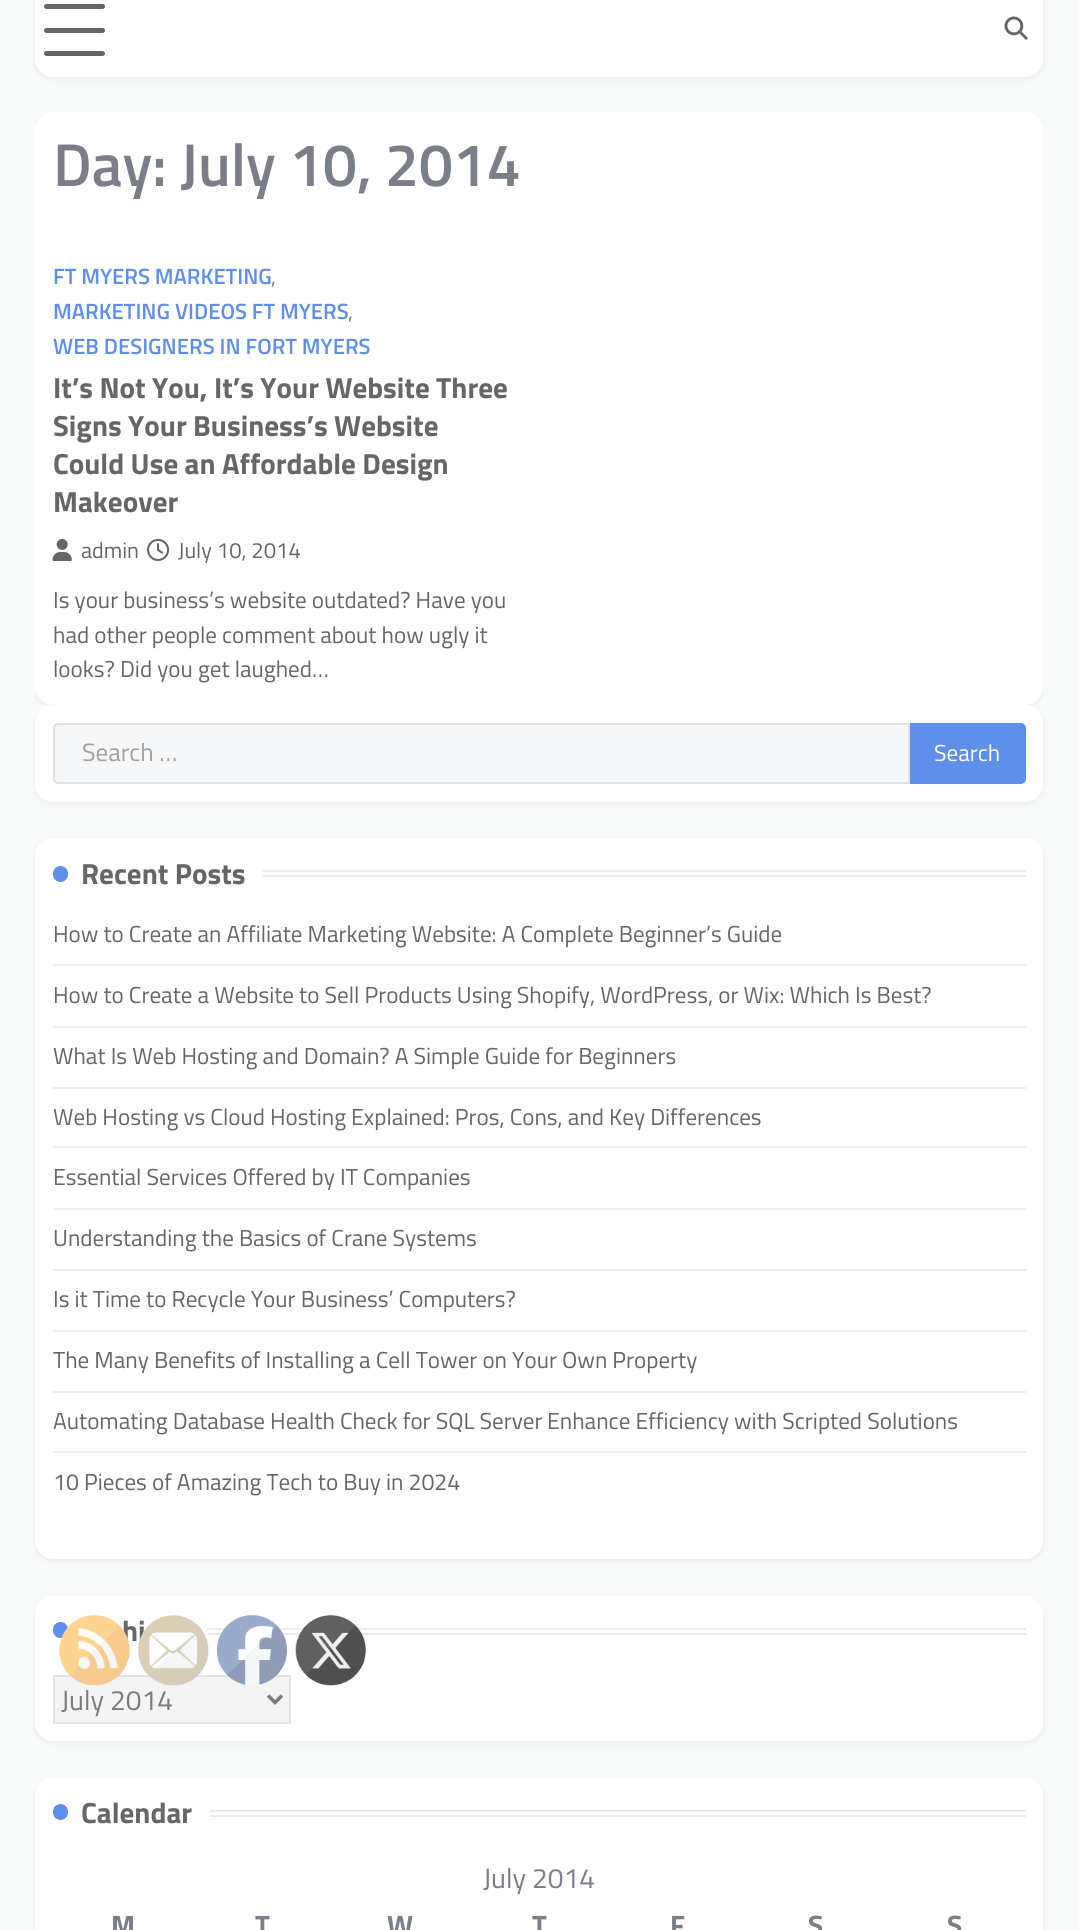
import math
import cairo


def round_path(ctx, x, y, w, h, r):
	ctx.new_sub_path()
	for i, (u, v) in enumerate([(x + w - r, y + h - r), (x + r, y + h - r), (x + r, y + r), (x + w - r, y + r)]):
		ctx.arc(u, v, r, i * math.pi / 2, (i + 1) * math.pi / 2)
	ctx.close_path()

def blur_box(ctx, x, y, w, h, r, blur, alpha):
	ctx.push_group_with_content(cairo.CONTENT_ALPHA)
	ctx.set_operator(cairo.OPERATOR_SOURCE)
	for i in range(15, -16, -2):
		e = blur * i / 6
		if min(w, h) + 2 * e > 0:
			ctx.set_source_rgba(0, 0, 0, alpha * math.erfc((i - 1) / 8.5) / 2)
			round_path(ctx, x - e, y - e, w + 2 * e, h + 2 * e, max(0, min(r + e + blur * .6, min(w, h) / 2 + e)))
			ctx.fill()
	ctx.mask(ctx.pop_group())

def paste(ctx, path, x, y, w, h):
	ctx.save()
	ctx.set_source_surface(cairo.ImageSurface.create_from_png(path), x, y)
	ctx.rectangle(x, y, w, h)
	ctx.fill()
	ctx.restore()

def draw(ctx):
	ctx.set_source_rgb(0.976, 0.984, 0.98)
	ctx.paint()
	ctx.set_source_rgb(0.31, 0.31, 0.31)
	blur_box(ctx, 35, -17, 1008, 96, 18, 2.5, 0.1)
	ctx.set_source_rgb(1, 1, 1)
	ctx.new_path()
	ctx.move_to(35, -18)
	ctx.line_to(1043, -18)
	ctx.line_to(1043, 59)
	ctx.curve_to(1043, 69, 1035, 77, 1025, 77)
	ctx.line_to(53, 77)
	ctx.curve_to(43, 77, 35, 69, 35, 59)
	ctx.close_path()
	ctx.fill()
	ctx.set_source_rgb(0.396, 0.4, 0.408)
	round_path(ctx, 44, 4, 61, 5, 2.5)
	ctx.fill()
	round_path(ctx, 44, 28, 61, 5, 2.5)
	ctx.fill()
	round_path(ctx, 44, 51, 61, 5, 2.5)
	ctx.fill()
	paste(ctx, 'media/1.png', 1004, 16, 24, 24)
	ctx.save()
	ctx.rectangle(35, 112, 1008, 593)
	ctx.clip()
	ctx.set_source_rgb(0.31, 0.31, 0.31)
	blur_box(ctx, 35, 114, 1008, 593, 18, 2.5, 0.1)
	ctx.restore()
	ctx.set_source_rgb(1, 1, 1)
	round_path(ctx, 35, 112, 1008, 593, 18)
	ctx.fill()
	ctx.select_font_face('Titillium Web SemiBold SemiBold')
	ctx.set_font_size(60.5)
	ctx.set_source_rgb(0.475, 0.494, 0.533)
	ctx.move_to(53, 186)
	ctx.show_text('Day: July 10, 2014')
	ctx.set_font_size(22.1)
	ctx.set_source_rgb(0.369, 0.565, 0.918)
	ctx.move_to(53, 284)
	ctx.show_text('FT MYERS MARKETING')
	ctx.select_font_face('Titillium Web')
	ctx.set_source_rgb(0.475, 0.494, 0.533)
	ctx.move_to(271, 284)
	ctx.show_text(',')
	ctx.select_font_face('Titillium Web SemiBold SemiBold')
	ctx.set_source_rgb(0.369, 0.565, 0.918)
	ctx.move_to(53, 319)
	ctx.show_text('MARKETING VIDEOS FT MYERS')
	ctx.select_font_face('Titillium Web')
	ctx.set_source_rgb(0.475, 0.494, 0.533)
	ctx.move_to(348, 319)
	ctx.show_text(',')
	ctx.select_font_face('Titillium Web SemiBold SemiBold')
	ctx.set_source_rgb(0.369, 0.565, 0.918)
	ctx.move_to(53, 354)
	ctx.show_text('WEB DESIGNERS IN FORT MYERS')
	ctx.select_font_face('Titillium Web', cairo.FONT_SLANT_NORMAL, cairo.FONT_WEIGHT_BOLD)
	ctx.set_font_size(29.1)
	ctx.set_source_rgb(0.396, 0.4, 0.408)
	for x, y, s in [
		(53, 398, 'It’s Not You, It’s Your Website'),
		(436, 398, 'Three'),
		(53, 436, 'Signs Your Business’s Website'),
		(53, 474, 'Could Use an Affordable Design'),
		(53, 512, 'Makeover'),
	]:
		ctx.move_to(x, y)
		ctx.show_text(s)
	paste(ctx, 'media/2.png', 52, 538, 20, 23)
	ctx.select_font_face('Titillium Web')
	ctx.set_font_size(22.1)
	ctx.move_to(81, 558)
	ctx.show_text('admin')
	paste(ctx, 'media/3.png', 147, 538, 23, 23)
	ctx.move_to(178, 558)
	ctx.show_text('July 10, 2014')
	ctx.set_font_size(23.1)
	for x, y, s in [
		(53, 608, 'Is your business’s website outdated? Have you'),
		(53, 643, 'had other people comment about how ugly it'),
		(53, 677, 'looks? Did you get laughed…'),
	]:
		ctx.move_to(x, y)
		ctx.show_text(s)
	ctx.set_source_rgb(0.31, 0.31, 0.31)
	blur_box(ctx, 35, 707, 1008, 96, 18, 2.5, 0.1)
	ctx.set_source_rgb(1, 1, 1)
	round_path(ctx, 35, 705, 1008, 97, 18)
	ctx.fill()
	ctx.set_source_rgb(0.961, 0.965, 0.976)
	ctx.new_path()
	ctx.move_to(58, 723)
	ctx.line_to(910, 723)
	ctx.line_to(910, 784)
	ctx.line_to(58, 784)
	ctx.curve_to(55, 784, 53, 782, 53, 779)
	ctx.line_to(53, 728)
	ctx.curve_to(53, 725, 55, 723, 58, 723)
	ctx.close_path()
	ctx.fill()
	ctx.new_path()
	ctx.move_to(58, 724)
	ctx.line_to(909, 724)
	ctx.line_to(909, 783)
	ctx.line_to(58, 783)
	ctx.curve_to(56, 783, 54, 781, 54, 779)
	ctx.line_to(54, 728)
	ctx.curve_to(54, 726, 56, 724, 58, 724)
	ctx.close_path()
	ctx.set_source_rgba(0.396, 0.4, 0.408, 0.15)
	ctx.stroke()
	ctx.set_font_size(25)
	ctx.set_source_rgb(0.627, 0.627, 0.627)
	ctx.move_to(82, 761)
	ctx.show_text('Search …')
	ctx.set_source_rgb(0.369, 0.565, 0.918)
	ctx.new_path()
	ctx.move_to(911, 724)
	ctx.line_to(1021, 724)
	ctx.curve_to(1023, 724, 1025, 726, 1025, 728)
	ctx.line_to(1025, 779)
	ctx.curve_to(1025, 781, 1023, 783, 1021, 783)
	ctx.line_to(911, 783)
	ctx.close_path()
	ctx.fill_preserve()
	ctx.stroke()
	ctx.set_font_size(23.1)
	ctx.set_source_rgb(1, 1, 1)
	ctx.move_to(934, 761)
	ctx.show_text('Search')
	ctx.set_source_rgb(0.31, 0.31, 0.31)
	blur_box(ctx, 35, 840, 1008, 721, 18, 2.5, 0.1)
	ctx.set_source_rgb(1, 1, 1)
	round_path(ctx, 35, 838, 1008, 721, 18)
	ctx.fill()
	ctx.set_source_rgb(0.369, 0.565, 0.918)
	round_path(ctx, 53, 866, 15, 16, 7.5)
	ctx.fill()
	ctx.select_font_face('Titillium Web', cairo.FONT_SLANT_NORMAL, cairo.FONT_WEIGHT_BOLD)
	ctx.set_font_size(29.1)
	ctx.set_source_rgb(0.396, 0.4, 0.408)
	ctx.move_to(81, 884)
	ctx.show_text('Recent Posts')
	ctx.set_source_rgb(0.918, 0.918, 0.918)
	ctx.rectangle(263, 870, 763, 2)
	ctx.rectangle(263, 875, 763, 2)
	ctx.fill()
	ctx.set_source_rgb(0.933, 0.933, 0.933)
	ctx.rectangle(53, 964, 973, 2)
	ctx.fill()
	ctx.select_font_face('Titillium Web')
	ctx.set_font_size(23.1)
	ctx.set_source_rgb(0.396, 0.4, 0.408)
	ctx.move_to(53, 942)
	ctx.show_text('How to Create an Affiliate Marketing Website: A Complete Beginner’s Guide')
	ctx.set_source_rgb(0.933, 0.933, 0.933)
	ctx.rectangle(53, 1026, 973, 2)
	ctx.fill()
	ctx.set_source_rgb(0.396, 0.4, 0.408)
	ctx.move_to(53, 1003)
	ctx.show_text('How to Create a Website to Sell Products Using Shopify, WordPress, or Wix: Which Is Best?')
	ctx.set_source_rgb(0.933, 0.933, 0.933)
	ctx.rectangle(53, 1087, 973, 2)
	ctx.fill()
	ctx.set_source_rgb(0.396, 0.4, 0.408)
	ctx.move_to(53, 1064)
	ctx.show_text('What Is Web Hosting and Domain? A Simple Guide for Beginners')
	ctx.set_source_rgb(0.933, 0.933, 0.933)
	ctx.rectangle(53, 1146, 973, 2)
	ctx.fill()
	ctx.set_source_rgb(0.396, 0.4, 0.408)
	ctx.move_to(53, 1125)
	ctx.show_text('Web Hosting vs Cloud Hosting Explained: Pros, Cons, and Key Differences')
	ctx.set_source_rgb(0.933, 0.933, 0.933)
	ctx.rectangle(53, 1208, 973, 2)
	ctx.fill()
	ctx.set_source_rgb(0.396, 0.4, 0.408)
	ctx.move_to(53, 1185)
	ctx.show_text('Essential Services Offered by IT Companies')
	ctx.set_source_rgb(0.933, 0.933, 0.933)
	ctx.rectangle(53, 1269, 973, 2)
	ctx.fill()
	ctx.set_source_rgb(0.396, 0.4, 0.408)
	ctx.move_to(53, 1246)
	ctx.show_text('Understanding the Basics of Crane Systems')
	ctx.set_source_rgb(0.933, 0.933, 0.933)
	ctx.rectangle(53, 1330, 973, 2)
	ctx.fill()
	ctx.set_source_rgb(0.396, 0.4, 0.408)
	ctx.move_to(53, 1307)
	ctx.show_text('Is it Time to Recycle Your Business’ Computers?')
	ctx.set_source_rgb(0.933, 0.933, 0.933)
	ctx.rectangle(53, 1391, 973, 2)
	ctx.fill()
	ctx.set_source_rgb(0.396, 0.4, 0.408)
	ctx.move_to(53, 1368)
	ctx.show_text('The Many Benefits of Installing a Cell Tower on Your Own Property')
	ctx.set_source_rgb(0.933, 0.933, 0.933)
	ctx.rectangle(53, 1451, 973, 2)
	ctx.fill()
	ctx.set_source_rgb(0.396, 0.4, 0.408)
	for x, y, s in [
		(53, 1429, 'Automating Database Health Check for SQL Server'),
		(547, 1429, 'Enhance Efficiency with Scripted Solutions'),
		(53, 1490, '10 Pieces of Amazing Tech to Buy in 2024'),
	]:
		ctx.move_to(x, y)
		ctx.show_text(s)
	ctx.set_source_rgb(0.31, 0.31, 0.31)
	blur_box(ctx, 35, 1598, 1008, 145, 18, 2.5, 0.1)
	ctx.set_source_rgb(1, 1, 1)
	round_path(ctx, 35, 1596, 1008, 145, 18)
	ctx.fill()
	ctx.set_source_rgb(0.369, 0.565, 0.918)
	round_path(ctx, 53, 1622, 15, 16, 7.5)
	ctx.fill()
	ctx.select_font_face('Titillium Web', cairo.FONT_SLANT_NORMAL, cairo.FONT_WEIGHT_BOLD)
	ctx.set_font_size(29.1)
	ctx.set_source_rgb(0.396, 0.4, 0.408)
	ctx.move_to(122, 1641)
	ctx.show_text('hi')
	ctx.set_source_rgb(0.918, 0.918, 0.918)
	ctx.rectangle(207, 1628, 819, 2)
	ctx.fill()
	ctx.rectangle(207, 1633, 819, 2)
	ctx.fill()
	ctx.set_source_rgb(0.957, 0.957, 0.957)
	ctx.rectangle(54, 1676, 236, 47)
	ctx.fill_preserve()
	ctx.set_source_rgb(0.89, 0.89, 0.89)
	ctx.stroke()
	ctx.new_path()
	ctx.move_to(268, 1695.5)
	ctx.line_to(275, 1702.5)
	ctx.line_to(282, 1695.5)
	ctx.set_source_rgb(0.482, 0.482, 0.482)
	ctx.set_line_width(3.5)
	ctx.stroke()
	ctx.select_font_face('Titillium Web')
	ctx.set_font_size(28)
	ctx.move_to(61, 1710)
	ctx.show_text('July 2014')
	ctx.set_source_rgb(0.31, 0.31, 0.31)
	blur_box(ctx, 35, 1780, 1008, 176, 18, 2.5, 0.1)
	ctx.set_source_rgb(1, 1, 1)
	round_path(ctx, 35, 1778, 1008, 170, 18)
	ctx.fill()
	ctx.set_source_rgb(0.369, 0.565, 0.918)
	round_path(ctx, 53, 1804, 15, 16, 7.5)
	ctx.fill()
	ctx.select_font_face('Titillium Web', cairo.FONT_SLANT_NORMAL, cairo.FONT_WEIGHT_BOLD)
	ctx.set_font_size(29.1)
	ctx.set_source_rgb(0.396, 0.4, 0.408)
	ctx.move_to(81, 1823)
	ctx.show_text('Calendar')
	ctx.set_source_rgb(0.918, 0.918, 0.918)
	ctx.rectangle(210, 1810, 816, 2)
	ctx.fill()
	ctx.rectangle(210, 1815, 816, 2)
	ctx.fill()
	ctx.select_font_face('Titillium Web')
	ctx.set_font_size(28)
	ctx.set_source_rgb(0.475, 0.494, 0.533)
	ctx.move_to(483, 1888)
	ctx.show_text('July 2014')
	ctx.select_font_face('Titillium Web', cairo.FONT_SLANT_NORMAL, cairo.FONT_WEIGHT_BOLD)
	for x, y, s in [
		(111, 1935, 'M'),
		(255, 1935, 'T'),
		(387, 1935, 'W'),
		(532, 1935, 'T'),
		(670, 1935, 'F'),
		(808, 1935, 'S'),
		(947, 1935, 'S'),
	]:
		ctx.move_to(x, y)
		ctx.show_text(s)
	paste(ctx, 'media/4.png', 59, 1615, 71, 71)
	paste(ctx, 'media/5.png', 138, 1615, 71, 71)
	paste(ctx, 'media/6.png', 217, 1615, 70, 70)
	paste(ctx, 'media/7.png', 295, 1615, 71, 71)


surface = cairo.ImageSurface(cairo.FORMAT_RGB24, 1078, 1930)
ctx = cairo.Context(surface)
options = cairo.FontOptions()
options.set_hint_metrics(cairo.HINT_METRICS_OFF)
options.set_hint_style(cairo.HINT_STYLE_NONE)
ctx.set_font_options(options)
ctx.set_miter_limit(4)
draw(ctx)
surface.write_to_png('image.png')
